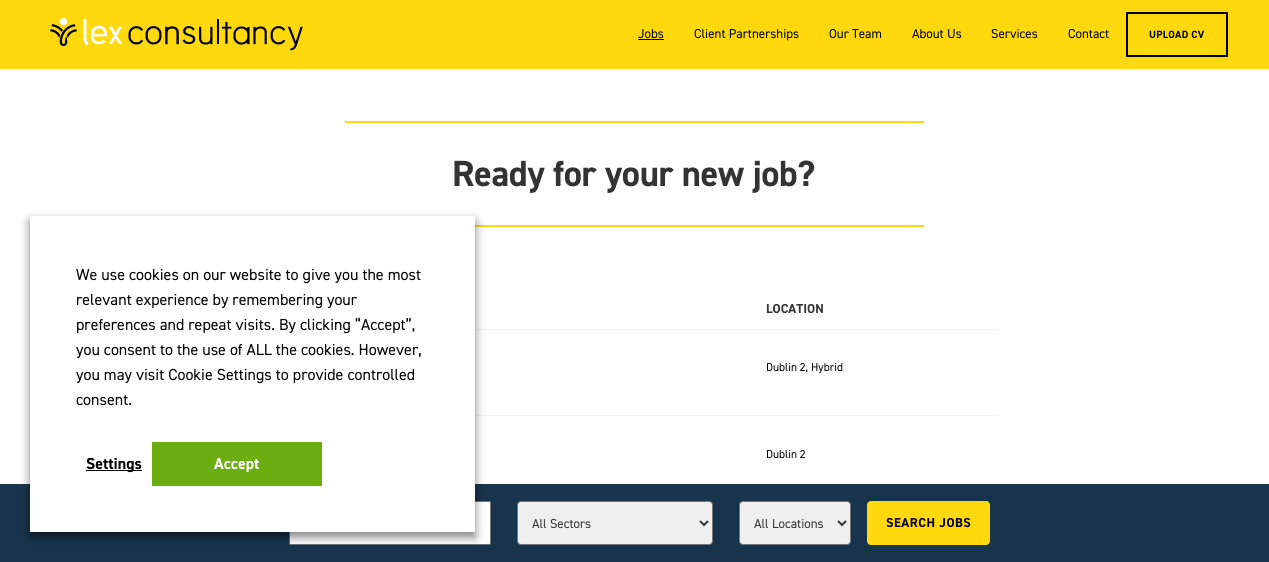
import math
import cairo


def write_spaced(ctx, x, y, s, letter, word):
	ctx.move_to(x, y)
	for ch in s:
		ctx.show_text(ch)
		ctx.rel_move_to(letter + word * (ch == ' '), 0)

def round_path(ctx, x, y, w, h, r):
	ctx.new_sub_path()
	for i, (u, v) in enumerate([(x + w - r, y + h - r), (x + r, y + h - r), (x + r, y + r), (x + w - r, y + r)]):
		ctx.arc(u, v, r, i * math.pi / 2, (i + 1) * math.pi / 2)
	ctx.close_path()

def blur_box(ctx, x, y, w, h, r, blur, alpha):
	ctx.push_group_with_content(cairo.CONTENT_ALPHA)
	ctx.set_operator(cairo.OPERATOR_SOURCE)
	for i in range(15, -16, -2):
		e = blur * i / 6
		if min(w, h) + 2 * e > 0:
			ctx.set_source_rgba(0, 0, 0, alpha * math.erfc((i - 1) / 8.5) / 2)
			round_path(ctx, x - e, y - e, w + 2 * e, h + 2 * e, max(0, min(r + e + blur * .6, min(w, h) / 2 + e)))
			ctx.fill()
	ctx.mask(ctx.pop_group())

def paste(ctx, path, x, y, w, h):
	ctx.save()
	ctx.set_source_surface(cairo.ImageSurface.create_from_png(path), x, y)
	ctx.rectangle(x, y, w, h)
	ctx.fill()
	ctx.restore()

def draw(ctx):
	ctx.set_source_rgb(1, 1, 1)
	ctx.paint()
	ctx.set_source_rgb(1, 0.847, 0.055)
	ctx.rectangle(0, 0, 1269, 69)
	ctx.fill()
	paste(ctx, 'media/1.png', 50, 17, 253, 34)
	ctx.select_font_face('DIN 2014')
	ctx.set_font_size(13)
	ctx.set_source_rgb(0, 0, 0)
	ctx.move_to(638, 38)
	ctx.show_text('Jobs')
	ctx.rectangle(638, 39, 26, 1)
	ctx.fill()
	for x, y, s in [
		(694, 38, 'Client Partnerships'),
		(829, 38, 'Our Team'),
		(912, 38, 'About Us'),
		(991, 38, 'Services'),
		(1068, 38, 'Contact'),
	]:
		ctx.move_to(x, y)
		ctx.show_text(s)
	ctx.rectangle(1127, 13, 100, 43)
	ctx.stroke()
	ctx.select_font_face('DIN 2014', cairo.FONT_SLANT_NORMAL, cairo.FONT_WEIGHT_BOLD)
	ctx.set_font_size(10.5)
	write_spaced(ctx, 1149, 38, 'UPLOAD CV', 0.25, 0)
	ctx.set_source_rgb(1, 0.847, 0.055)
	ctx.rectangle(475, 225, 449, 2)
	ctx.fill()
	ctx.set_source_rgb(0.941, 0.941, 0.941)
	ctx.rectangle(475, 329, 524, 1)
	ctx.rectangle(475, 415, 524, 1)
	ctx.fill()
	ctx.set_source_rgb(0.094, 0.204, 0.298)
	ctx.rectangle(0, 484, 1269, 78)
	ctx.fill()
	ctx.set_source_rgb(1, 1, 1)
	round_path(ctx, 289.5, 501.5, 201, 43, 1.5)
	ctx.fill_preserve()
	ctx.set_source_rgb(0.463, 0.463, 0.463)
	ctx.set_line_width(1)
	ctx.stroke()
	ctx.set_source_rgb(0, 0, 0)
	blur_box(ctx, 30, 221, 445, 316, 0, 5, 0.5)
	ctx.set_source_rgb(1, 1, 1)
	ctx.rectangle(30, 216, 445, 316)
	ctx.fill()
	ctx.select_font_face('DIN 2014')
	ctx.set_font_size(16)
	ctx.set_source_rgb(0, 0, 0)
	for x, y, s in [
		(76, 280, 'We use cookies on our website to give you the most'),
		(76, 305, 'relevant experience by remembering your'),
		(76, 330, 'preferences and repeat visits. By clicking “Accept”,'),
		(76, 355, 'you consent to the use of ALL the cookies. However,'),
		(76, 380, 'you may visit Cookie Settings to provide controlled'),
		(76, 405, 'consent.'),
	]:
		ctx.move_to(x, y)
		ctx.show_text(s)
	ctx.rectangle(86, 470, 56, 1)
	ctx.fill()
	ctx.select_font_face('DIN 2014', cairo.FONT_SLANT_NORMAL, cairo.FONT_WEIGHT_BOLD)
	ctx.move_to(86, 469)
	ctx.show_text('Settings')
	ctx.set_source_rgb(0.424, 0.678, 0.067)
	ctx.rectangle(152, 442, 170, 44)
	ctx.fill()
	ctx.set_source_rgb(1, 1, 1)
	ctx.move_to(214, 469)
	ctx.show_text('Accept')
	ctx.set_source_rgb(1, 0.847, 0.055)
	ctx.rectangle(345, 121, 579, 2)
	ctx.fill()
	ctx.set_font_size(36.5)
	ctx.set_source_rgb(0.2, 0.2, 0.2)
	write_spaced(ctx, 452, 186, 'Ready for your new job?', -0.4, 0)
	ctx.set_font_size(13)
	ctx.move_to(766, 313)
	ctx.show_text('LOCATION')
	ctx.select_font_face('DIN 2014')
	ctx.set_font_size(11.5)
	ctx.set_source_rgb(0, 0, 0)
	ctx.move_to(766, 371)
	ctx.show_text('Dublin 2, Hybrid')
	ctx.move_to(766, 458)
	ctx.show_text('Dublin 2')
	ctx.set_source_rgb(0.937, 0.937, 0.937)
	round_path(ctx, 517.5, 501.5, 195, 43, 3.5)
	ctx.fill_preserve()
	ctx.set_source_rgb(0.463, 0.463, 0.463)
	ctx.stroke()
	ctx.new_path()
	ctx.move_to(700, 521)
	ctx.line_to(704, 525)
	ctx.line_to(708, 521)
	ctx.set_source_rgb(0.2, 0.2, 0.2)
	ctx.set_line_width(2)
	ctx.stroke()
	ctx.set_font_size(13)
	ctx.move_to(532, 528)
	ctx.show_text('All Sectors')
	ctx.set_source_rgb(0.937, 0.937, 0.937)
	round_path(ctx, 739.5, 501.5, 111, 43, 3.5)
	ctx.fill_preserve()
	ctx.set_source_rgb(0.463, 0.463, 0.463)
	ctx.set_line_width(1)
	ctx.stroke()
	ctx.new_path()
	ctx.move_to(838, 521)
	ctx.line_to(842, 525)
	ctx.line_to(846, 521)
	ctx.set_source_rgb(0.2, 0.2, 0.2)
	ctx.set_line_width(2)
	ctx.stroke()
	ctx.move_to(754, 528)
	ctx.show_text('All Locations')
	ctx.set_source_rgb(1, 0.847, 0.055)
	round_path(ctx, 867, 501, 123, 44, 4)
	ctx.fill()
	ctx.select_font_face('DIN 2014', cairo.FONT_SLANT_NORMAL, cairo.FONT_WEIGHT_BOLD)
	ctx.set_source_rgb(0, 0, 0)
	write_spaced(ctx, 886, 527, 'SEARCH JOBS', 0.5, 0)


surface = cairo.ImageSurface(cairo.FORMAT_RGB24, 1269, 562)
ctx = cairo.Context(surface)
options = cairo.FontOptions()
options.set_hint_metrics(cairo.HINT_METRICS_OFF)
options.set_hint_style(cairo.HINT_STYLE_NONE)
ctx.set_font_options(options)
ctx.set_miter_limit(4)
draw(ctx)
surface.write_to_png('image.png')
